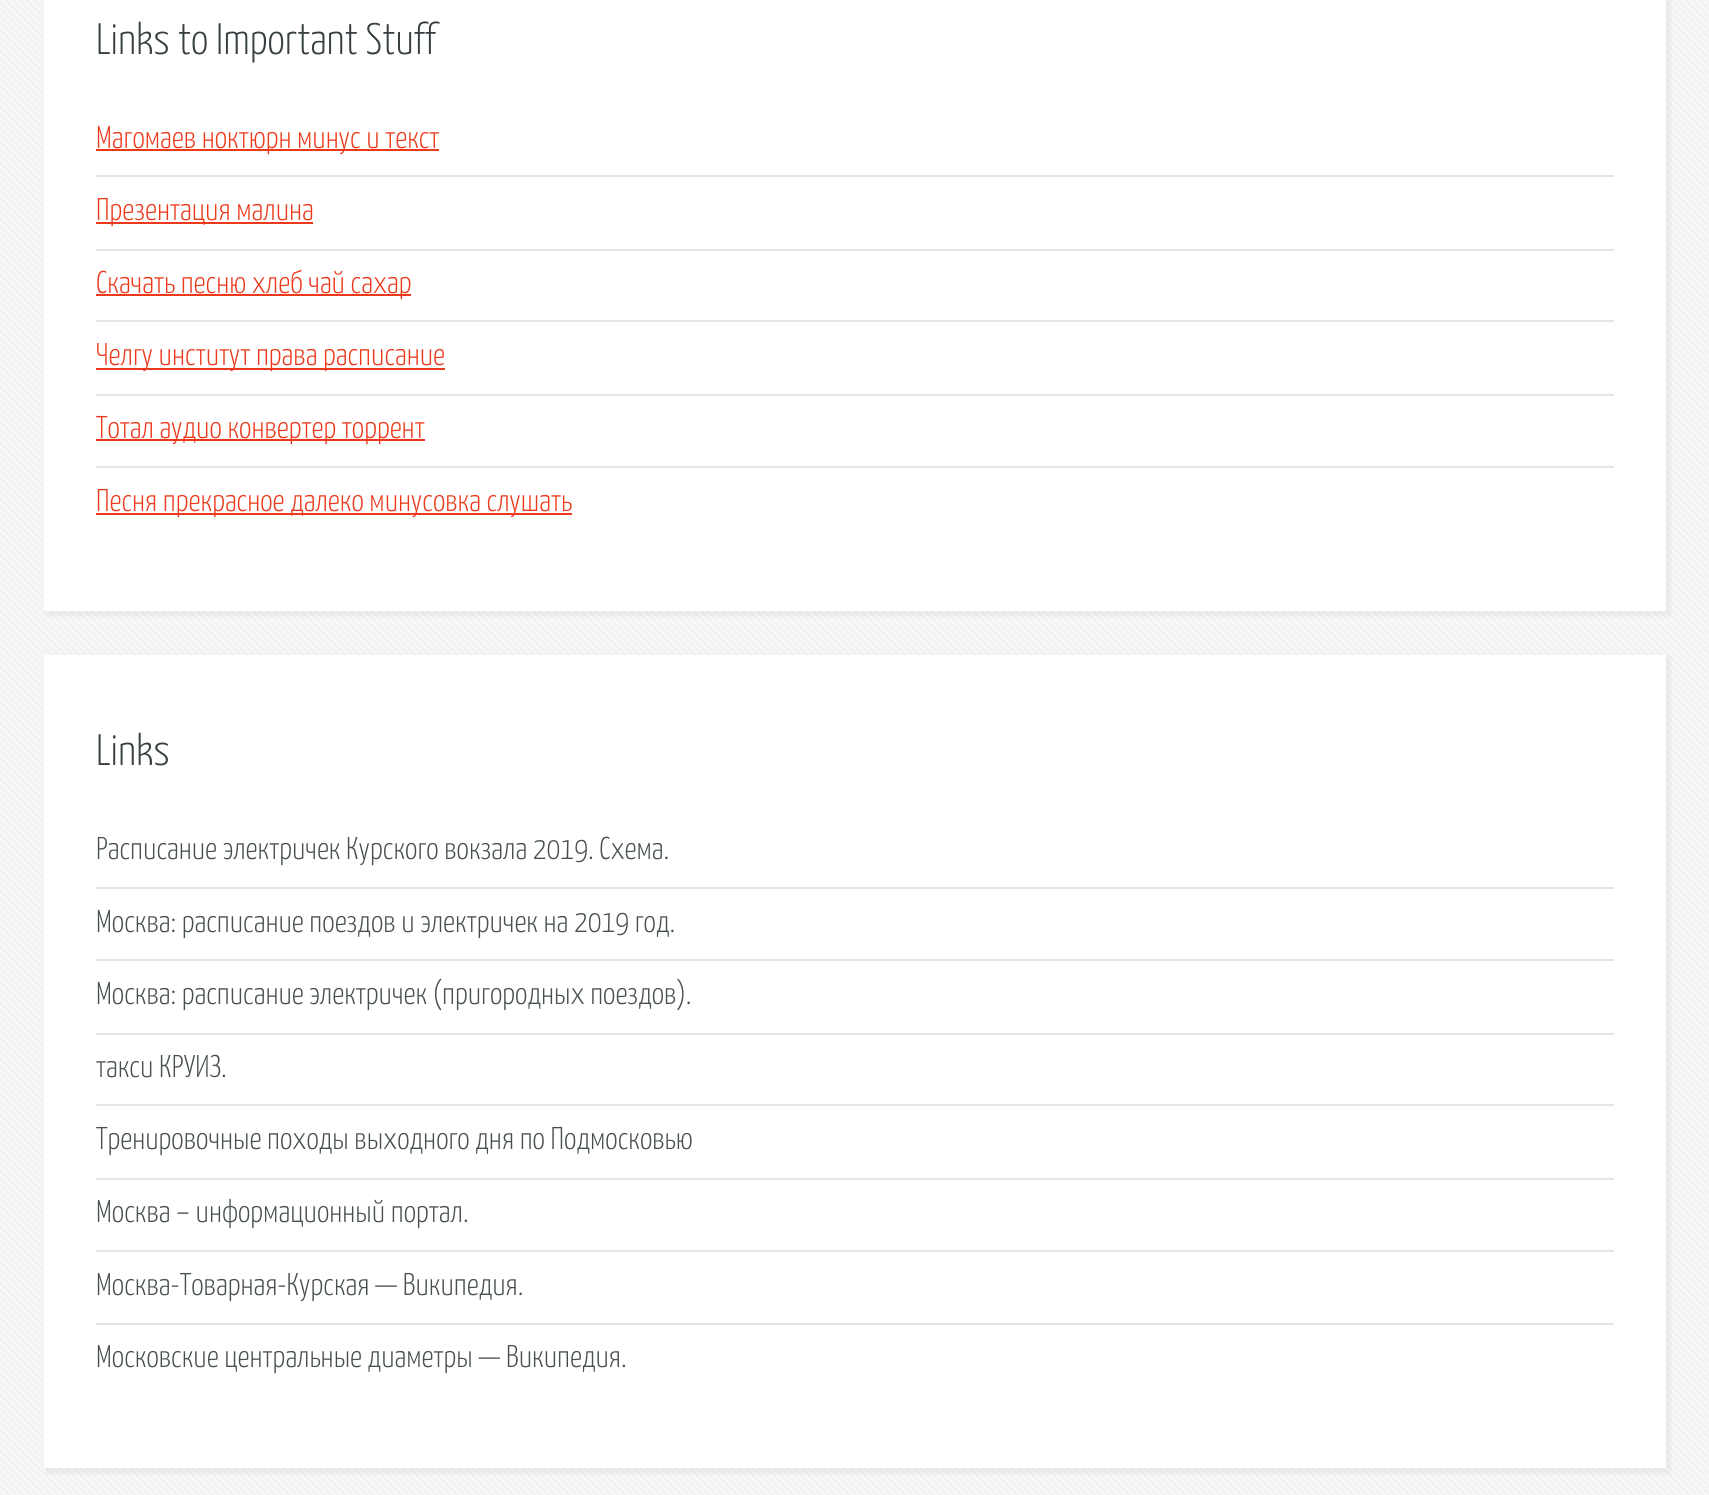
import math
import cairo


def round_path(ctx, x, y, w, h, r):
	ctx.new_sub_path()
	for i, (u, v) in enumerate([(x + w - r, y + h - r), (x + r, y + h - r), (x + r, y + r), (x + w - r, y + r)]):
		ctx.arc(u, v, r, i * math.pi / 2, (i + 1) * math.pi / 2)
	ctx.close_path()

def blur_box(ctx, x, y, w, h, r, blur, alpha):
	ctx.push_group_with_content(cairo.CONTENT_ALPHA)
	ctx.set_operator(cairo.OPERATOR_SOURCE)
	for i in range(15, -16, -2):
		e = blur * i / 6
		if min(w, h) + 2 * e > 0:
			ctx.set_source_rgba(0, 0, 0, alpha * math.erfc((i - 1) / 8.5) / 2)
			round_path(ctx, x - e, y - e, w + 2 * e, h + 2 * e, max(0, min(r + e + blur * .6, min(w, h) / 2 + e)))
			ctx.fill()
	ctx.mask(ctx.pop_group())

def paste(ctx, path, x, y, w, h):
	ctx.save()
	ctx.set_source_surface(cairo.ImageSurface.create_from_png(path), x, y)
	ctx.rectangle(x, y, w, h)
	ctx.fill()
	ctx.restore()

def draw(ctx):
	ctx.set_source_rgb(0.969, 0.969, 0.969)
	ctx.paint()
	paste(ctx, 'media/1.png', 0, 0, 1709, 1495)
	ctx.set_source_rgb(0.502, 0.502, 0.502)
	blur_box(ctx, 46, -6, 1625, 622, 0, 2, 0.1)
	ctx.set_source_rgb(1, 1, 1)
	ctx.rectangle(44, 0, 1622, 611)
	ctx.fill()
	ctx.select_font_face('Yanone Kaffeesatz Light')
	ctx.set_font_size(44)
	ctx.set_source_rgb(0.216, 0.247, 0.259)
	ctx.move_to(96, 54)
	ctx.show_text('Links to Important Stuff')
	ctx.set_source_rgb(0.886, 0.902, 0.91)
	ctx.rectangle(96, 175, 1518, 2)
	ctx.fill()
	ctx.set_source_rgb(0.929, 0.224, 0.106)
	ctx.rectangle(96, 149, 343, 2)
	ctx.fill()
	ctx.set_font_size(31.5)
	ctx.move_to(96, 148)
	ctx.show_text('Магомаев ноктюрн минус и текст')
	ctx.set_source_rgb(0.886, 0.902, 0.91)
	ctx.rectangle(96, 249, 1518, 2)
	ctx.fill()
	ctx.set_source_rgb(0.929, 0.224, 0.106)
	ctx.rectangle(96, 222, 217, 2)
	ctx.fill()
	ctx.move_to(96, 220)
	ctx.show_text('Презентация малина')
	ctx.set_source_rgb(0.886, 0.902, 0.91)
	ctx.rectangle(96, 320, 1518, 2)
	ctx.fill()
	ctx.set_source_rgb(0.929, 0.224, 0.106)
	ctx.rectangle(96, 294, 315, 2)
	ctx.fill()
	ctx.move_to(96, 293)
	ctx.show_text('Скачать песню хлеб чай сахар')
	ctx.set_source_rgb(0.886, 0.902, 0.91)
	ctx.rectangle(96, 394, 1518, 2)
	ctx.fill()
	ctx.set_source_rgb(0.929, 0.224, 0.106)
	ctx.rectangle(96, 368, 349, 2)
	ctx.fill()
	ctx.move_to(96, 365)
	ctx.show_text('Челгу институт права расписание')
	ctx.set_source_rgb(0.886, 0.902, 0.91)
	ctx.rectangle(96, 466, 1518, 2)
	ctx.fill()
	ctx.set_source_rgb(0.929, 0.224, 0.106)
	ctx.rectangle(96, 439, 329, 2)
	ctx.fill()
	ctx.move_to(96, 438)
	ctx.show_text('Тотал аудио конвертер торрент')
	ctx.rectangle(96, 513, 476, 2)
	ctx.fill()
	ctx.move_to(96, 511)
	ctx.show_text('Песня прекрасное далеко минусовка слушать')
	ctx.set_source_rgb(0.502, 0.502, 0.502)
	blur_box(ctx, 46, 656, 1625, 818, 0, 2, 0.1)
	ctx.set_source_rgb(1, 1, 1)
	ctx.rectangle(44, 655, 1622, 813)
	ctx.fill()
	ctx.set_font_size(44)
	ctx.set_source_rgb(0.216, 0.247, 0.259)
	ctx.move_to(96, 765)
	ctx.show_text('Links')
	ctx.set_source_rgb(0.886, 0.902, 0.91)
	ctx.rectangle(96, 887, 1518, 2)
	ctx.fill()
	ctx.set_font_size(31.5)
	ctx.set_source_rgb(0.278, 0.31, 0.318)
	ctx.move_to(96, 859)
	ctx.show_text('Расписание электричек Курского вокзала 2019. Схема.')
	ctx.set_source_rgb(0.886, 0.902, 0.91)
	ctx.rectangle(96, 959, 1518, 2)
	ctx.fill()
	ctx.set_source_rgb(0.278, 0.31, 0.318)
	ctx.move_to(96, 932)
	ctx.show_text('Москва: расписание поездов и электричек на 2019 год.')
	ctx.set_source_rgb(0.886, 0.902, 0.91)
	ctx.rectangle(96, 1033, 1518, 2)
	ctx.fill()
	ctx.set_source_rgb(0.278, 0.31, 0.318)
	ctx.move_to(96, 1004)
	ctx.show_text('Москва: расписание электричек (пригородных поездов).')
	ctx.set_source_rgb(0.886, 0.902, 0.91)
	ctx.rectangle(96, 1104, 1518, 2)
	ctx.fill()
	ctx.set_source_rgb(0.278, 0.31, 0.318)
	ctx.move_to(96, 1077)
	ctx.show_text('такси КРУИЗ.')
	ctx.set_source_rgb(0.886, 0.902, 0.91)
	ctx.rectangle(96, 1178, 1518, 2)
	ctx.fill()
	ctx.set_source_rgb(0.278, 0.31, 0.318)
	ctx.move_to(96, 1149)
	ctx.show_text('Тренировочные походы выходного дня по Подмосковью')
	ctx.set_source_rgb(0.886, 0.902, 0.91)
	ctx.rectangle(96, 1250, 1518, 2)
	ctx.fill()
	ctx.set_source_rgb(0.278, 0.31, 0.318)
	ctx.move_to(96, 1222)
	ctx.show_text('Москва – информационный портал.')
	ctx.set_source_rgb(0.886, 0.902, 0.91)
	ctx.rectangle(96, 1323, 1518, 2)
	ctx.fill()
	ctx.set_source_rgb(0.278, 0.31, 0.318)
	ctx.move_to(96, 1295)
	ctx.show_text('Москва-Товарная-Курская — Википедия.')
	ctx.move_to(96, 1367)
	ctx.show_text('Московские центральные диаметры — Википедия.')


surface = cairo.ImageSurface(cairo.FORMAT_RGB24, 1709, 1495)
ctx = cairo.Context(surface)
options = cairo.FontOptions()
options.set_hint_metrics(cairo.HINT_METRICS_OFF)
options.set_hint_style(cairo.HINT_STYLE_NONE)
ctx.set_font_options(options)
ctx.set_miter_limit(4)
draw(ctx)
surface.write_to_png('image.png')
